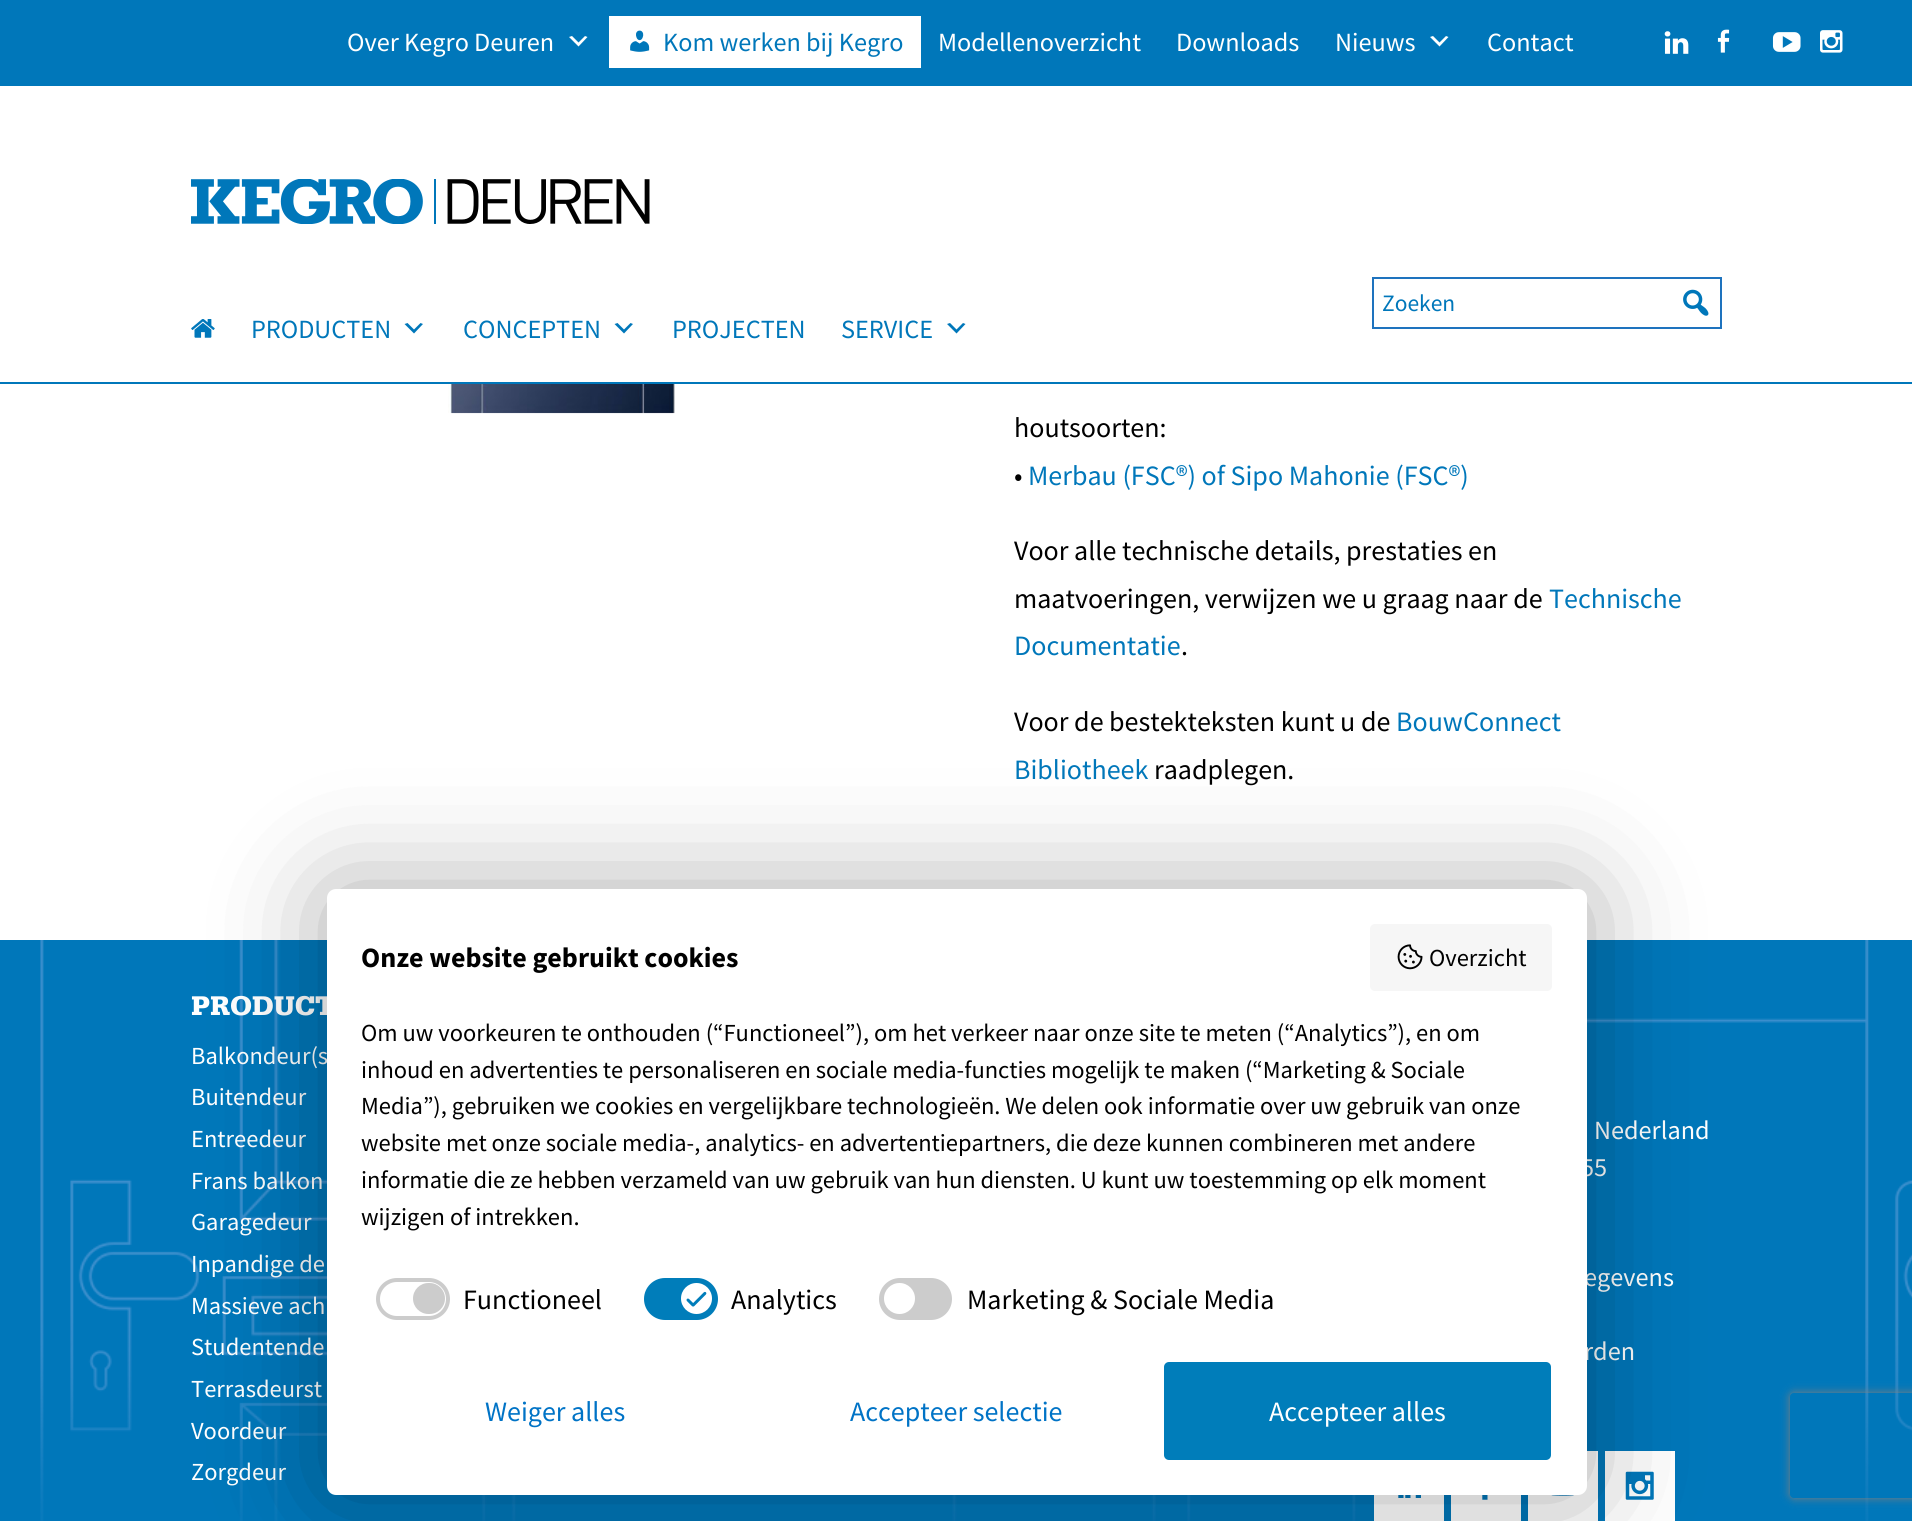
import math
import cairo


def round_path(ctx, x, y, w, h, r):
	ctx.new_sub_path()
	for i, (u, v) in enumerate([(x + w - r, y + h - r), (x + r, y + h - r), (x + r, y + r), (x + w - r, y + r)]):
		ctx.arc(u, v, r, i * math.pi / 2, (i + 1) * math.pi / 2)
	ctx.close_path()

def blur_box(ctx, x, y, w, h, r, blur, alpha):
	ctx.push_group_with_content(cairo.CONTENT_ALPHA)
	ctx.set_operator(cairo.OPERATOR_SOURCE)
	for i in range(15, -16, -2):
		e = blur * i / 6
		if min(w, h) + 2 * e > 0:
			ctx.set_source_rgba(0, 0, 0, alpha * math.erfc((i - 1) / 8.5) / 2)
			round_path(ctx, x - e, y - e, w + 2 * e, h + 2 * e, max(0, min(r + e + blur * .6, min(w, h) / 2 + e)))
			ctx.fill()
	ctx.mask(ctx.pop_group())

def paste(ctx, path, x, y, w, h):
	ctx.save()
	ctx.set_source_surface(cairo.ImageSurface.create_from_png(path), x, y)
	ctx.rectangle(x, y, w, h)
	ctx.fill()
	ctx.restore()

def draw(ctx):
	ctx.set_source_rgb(1, 1, 1)
	ctx.paint()
	ctx.set_source_rgb(0, 0.467, 0.729)
	ctx.rectangle(0, 0, 1912, 86)
	ctx.fill()
	ctx.select_font_face('Source Sans Pro')
	ctx.set_font_size(26.25)
	ctx.set_source_rgb(1, 1, 1)
	ctx.move_to(347, 51)
	ctx.show_text('Over Kegro Deuren')
	ctx.new_path()
	ctx.move_to(572, 36)
	ctx.line_to(578.5, 42.5)
	ctx.line_to(585, 36)
	ctx.line_to(587.5, 37)
	ctx.line_to(578.5, 46.5)
	ctx.line_to(569, 37)
	ctx.close_path()
	ctx.fill()
	ctx.rectangle(609, 16, 312, 52)
	ctx.fill()
	paste(ctx, 'media/1.png', 630, 30, 20, 22)
	ctx.set_source_rgb(0, 0.467, 0.729)
	ctx.move_to(663, 51)
	ctx.show_text('Kom werken bij Kegro')
	ctx.set_source_rgb(1, 1, 1)
	for x, y, s in [
		(938, 51, 'Modellenoverzicht'),
		(1176, 51, 'Downloads'),
		(1335, 51, 'Nieuws'),
	]:
		ctx.move_to(x, y)
		ctx.show_text(s)
	ctx.new_path()
	ctx.move_to(1433, 36)
	ctx.line_to(1439.5, 42.5)
	ctx.line_to(1446, 36)
	ctx.line_to(1448.5, 37)
	ctx.line_to(1439.5, 46.5)
	ctx.line_to(1430, 37)
	ctx.close_path()
	ctx.fill()
	ctx.move_to(1487, 51)
	ctx.show_text('Contact')
	paste(ctx, 'media/2.png', 1664, 31, 25, 23)
	paste(ctx, 'media/3.png', 1717, 29, 13, 24)
	paste(ctx, 'media/4.png', 1772, 32, 29, 20)
	paste(ctx, 'media/5.png', 1820, 30, 23, 23)
	ctx.set_source_rgb(0, 0.467, 0.729)
	ctx.rectangle(0, 382, 1912, 2)
	ctx.fill()
	paste(ctx, 'media/6.png', 191, 179, 459, 45)
	ctx.rectangle(1373, 278, 348, 50)
	ctx.set_source_rgb(0.118, 0.451, 0.745)
	ctx.stroke()
	ctx.set_font_size(23.5)
	ctx.set_source_rgb(0, 0.467, 0.729)
	ctx.move_to(1382, 311)
	ctx.show_text('Zoeken')
	paste(ctx, 'media/7.png', 1683, 289, 26, 27)
	paste(ctx, 'media/8.png', 191, 319, 24, 19)
	ctx.set_font_size(26.25)
	ctx.move_to(251, 338)
	ctx.show_text('PRODUCTEN')
	ctx.new_path()
	ctx.move_to(407.5, 323)
	ctx.line_to(414, 329.5)
	ctx.line_to(420.5, 323)
	ctx.line_to(423, 324)
	ctx.line_to(414, 333.5)
	ctx.line_to(404.5, 324)
	ctx.close_path()
	ctx.fill()
	ctx.move_to(463, 338)
	ctx.show_text('CONCEPTEN')
	ctx.new_path()
	ctx.move_to(617.5, 323)
	ctx.line_to(624, 329.5)
	ctx.line_to(630.5, 323)
	ctx.line_to(633, 324)
	ctx.line_to(624, 333.5)
	ctx.line_to(614.5, 324)
	ctx.close_path()
	ctx.fill()
	ctx.move_to(672, 338)
	ctx.show_text('PROJECTEN')
	ctx.move_to(841, 338)
	ctx.show_text('SERVICE')
	ctx.new_path()
	ctx.move_to(950, 323)
	ctx.line_to(956.5, 329.5)
	ctx.line_to(963, 323)
	ctx.line_to(965.5, 324)
	ctx.line_to(956.5, 333.5)
	ctx.line_to(947, 324)
	ctx.close_path()
	ctx.fill()
	paste(ctx, 'media/9.png', 448, 384, 227, 30)
	ctx.set_font_size(28)
	ctx.set_source_rgb(0, 0, 0)
	ctx.move_to(1014, 437)
	ctx.show_text('houtsoorten:')
	ctx.move_to(1014, 485)
	ctx.show_text('•')
	ctx.set_source_rgb(0, 0.467, 0.729)
	ctx.move_to(1028, 485)
	ctx.show_text('Merbau (FSC®) of Sipo Mahonie (FSC®)')
	ctx.set_source_rgb(0, 0, 0)
	ctx.move_to(1014, 560)
	ctx.show_text('Voor alle technische details, prestaties en')
	ctx.move_to(1014, 608)
	ctx.show_text('maatvoeringen, verwijzen we u graag naar de')
	ctx.set_source_rgb(0, 0.467, 0.729)
	ctx.move_to(1549, 608)
	ctx.show_text('Technische')
	ctx.move_to(1014, 655)
	ctx.show_text('Documentatie')
	ctx.set_source_rgb(0, 0, 0)
	ctx.move_to(1181, 655)
	ctx.show_text('.')
	ctx.move_to(1014, 731)
	ctx.show_text('Voor de bestekteksten kunt u de')
	ctx.set_source_rgb(0, 0.467, 0.729)
	ctx.move_to(1396, 731)
	ctx.show_text('BouwConnect')
	ctx.move_to(1014, 779)
	ctx.show_text('Bibliotheek')
	ctx.set_source_rgb(0, 0, 0)
	ctx.move_to(1154, 779)
	ctx.show_text('raadplegen.')
	ctx.set_source_rgb(0, 0.467, 0.729)
	ctx.rectangle(0, 940, 1912, 581)
	ctx.fill()
	paste(ctx, 'media/10.png', 40, 940, 1872, 581)
	ctx.select_font_face('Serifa', cairo.FONT_SLANT_NORMAL, cairo.FONT_WEIGHT_BOLD)
	ctx.set_source_rgb(1, 1, 1)
	ctx.move_to(191, 1015)
	ctx.show_text('PRODUCT')
	ctx.select_font_face('Source Sans Pro')
	ctx.set_font_size(24.5)
	for x, y, s in [
		(191, 1064, 'Balkondeur(s'),
		(191, 1105, 'Buitendeur'),
		(191, 1147, 'Entreedeur'),
		(191, 1189, 'Frans balkon'),
		(191, 1230, 'Garagedeur'),
		(191, 1272, 'Inpandige de'),
		(191, 1314, 'Massieve ach'),
		(191, 1355, 'Studentende'),
		(191, 1397, 'Terrasdeurst'),
		(191, 1439, 'Voordeur'),
		(191, 1480, 'Zorgdeur'),
	]:
		ctx.move_to(x, y)
		ctx.show_text(s)
	ctx.set_font_size(26.25)
	for x, y, s in [
		(1594, 1139, 'Nederland'),
		(1581, 1176, '55'),
		(1584, 1286, 'egevens'),
		(1584, 1360, 'rden'),
	]:
		ctx.move_to(x, y)
		ctx.show_text(s)
	ctx.rectangle(1374, 1495, 70, 26)
	ctx.fill()
	paste(ctx, 'media/11.png', 1398, 1495, 23, 3)
	ctx.rectangle(1451, 1495, 70, 26)
	ctx.fill()
	paste(ctx, 'media/12.png', 1482, 1495, 6, 5)
	ctx.rectangle(1528, 1451, 70, 70)
	ctx.fill()
	paste(ctx, 'media/13.png', 1551, 1495, 23, 1)
	ctx.rectangle(1605, 1451, 70, 70)
	ctx.fill()
	paste(ctx, 'media/14.png', 1625, 1471, 29, 29)
	ctx.set_source_rgb(0, 0, 0)
	blur_box(ctx, 327, 889, 1260, 606, 9, 56, 0.33)
	ctx.set_source_rgb(1, 1, 1)
	round_path(ctx, 327, 889, 1260, 606, 9)
	ctx.fill()
	ctx.select_font_face('Source Sans Pro', cairo.FONT_SLANT_NORMAL, cairo.FONT_WEIGHT_BOLD)
	ctx.set_font_size(28)
	ctx.set_source_rgb(0, 0, 0)
	ctx.move_to(361, 967)
	ctx.show_text('Onze website gebruikt cookies')
	ctx.set_source_rgb(0.961, 0.961, 0.961)
	round_path(ctx, 1370, 924, 182, 67, 5)
	ctx.fill()
	paste(ctx, 'media/15.png', 1397, 944, 26, 26)
	ctx.select_font_face('Source Sans Pro')
	ctx.set_font_size(24.5)
	ctx.set_source_rgb(0, 0, 0)
	for x, y, s in [
		(1429, 966, 'Overzicht'),
		(361, 1041, 'Om uw voorkeuren te onthouden (“Functioneel”), om het verkeer naar onze site te meten (“Analytics”), en om'),
		(361, 1078, 'inhoud en advertenties te personaliseren en sociale media-functies mogelijk te maken (“Marketing & Sociale'),
		(361, 1114, 'Media”), gebruiken we cookies en vergelijkbare technologieën. We delen ook informatie over uw gebruik van onze'),
		(361, 1151, 'website met onze sociale media-, analytics- en advertentiepartners, die deze kunnen combineren met andere'),
		(361, 1188, 'informatie die ze hebben verzameld van uw gebruik van hun diensten. U kunt uw toestemming op elk moment'),
		(361, 1225, 'wijzigen of intrekken.'),
	]:
		ctx.move_to(x, y)
		ctx.show_text(s)
	round_path(ctx, 378, 1280, 70, 38, 19)
	ctx.set_source_rgb(0.8, 0.8, 0.8)
	ctx.set_line_width(4)
	ctx.stroke()
	round_path(ctx, 413, 1283, 32, 31, 15.5)
	ctx.fill()
	ctx.set_font_size(28)
	ctx.set_source_rgb(0, 0, 0)
	ctx.move_to(463, 1309)
	ctx.show_text('Functioneel')
	ctx.set_source_rgb(0, 0.49, 0.729)
	round_path(ctx, 646, 1280, 70, 38, 19)
	ctx.fill_preserve()
	ctx.stroke()
	ctx.set_source_rgb(1, 1, 1)
	ctx.arc(696.5, 1298.5, 15.5, 0, 2 * math.pi)
	ctx.fill()
	paste(ctx, 'media/16.png', 686, 1291, 21, 16)
	ctx.set_source_rgb(0, 0, 0)
	ctx.move_to(731, 1309)
	ctx.show_text('Analytics')
	ctx.set_source_rgb(0.8, 0.8, 0.8)
	round_path(ctx, 881, 1280, 69, 38, 19)
	ctx.fill_preserve()
	ctx.stroke()
	ctx.set_source_rgb(1, 1, 1)
	ctx.arc(899.5, 1298.5, 15.5, 0, 2 * math.pi)
	ctx.fill()
	ctx.set_source_rgb(0, 0, 0)
	ctx.move_to(967, 1309)
	ctx.show_text('Marketing & Sociale Media')
	ctx.set_source_rgb(0, 0.451, 0.776)
	ctx.move_to(485, 1421)
	ctx.show_text('Weiger alles')
	ctx.move_to(850, 1421)
	ctx.show_text('Accepteer selectie')
	ctx.set_source_rgb(0, 0.49, 0.729)
	round_path(ctx, 1164, 1362, 387, 98, 5)
	ctx.fill()
	ctx.set_source_rgb(1, 1, 1)
	ctx.move_to(1269, 1421)
	ctx.show_text('Accepteer alles')
	ctx.save()
	ctx.set_fill_rule(cairo.FILL_RULE_EVEN_ODD)
	ctx.new_path()
	ctx.move_to(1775, 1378)
	ctx.line_to(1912, 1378)
	ctx.line_to(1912, 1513)
	ctx.line_to(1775, 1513)
	ctx.close_path()
	ctx.move_to(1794, 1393)
	ctx.line_to(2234, 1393)
	ctx.curve_to(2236, 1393, 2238, 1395, 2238, 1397)
	ctx.line_to(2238, 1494)
	ctx.curve_to(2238, 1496, 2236, 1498, 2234, 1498)
	ctx.line_to(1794, 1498)
	ctx.curve_to(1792, 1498, 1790, 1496, 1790, 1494)
	ctx.line_to(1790, 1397)
	ctx.curve_to(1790, 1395, 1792, 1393, 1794, 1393)
	ctx.close_path()
	ctx.clip()
	ctx.set_source_rgb(0.502, 0.502, 0.502)
	blur_box(ctx, 1790, 1393, 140, 105, 4, 4.5, 1)
	ctx.restore()


surface = cairo.ImageSurface(cairo.FORMAT_RGB24, 1912, 1521)
ctx = cairo.Context(surface)
options = cairo.FontOptions()
options.set_hint_metrics(cairo.HINT_METRICS_OFF)
options.set_hint_style(cairo.HINT_STYLE_NONE)
ctx.set_font_options(options)
ctx.set_miter_limit(4)
draw(ctx)
surface.write_to_png('image.png')
